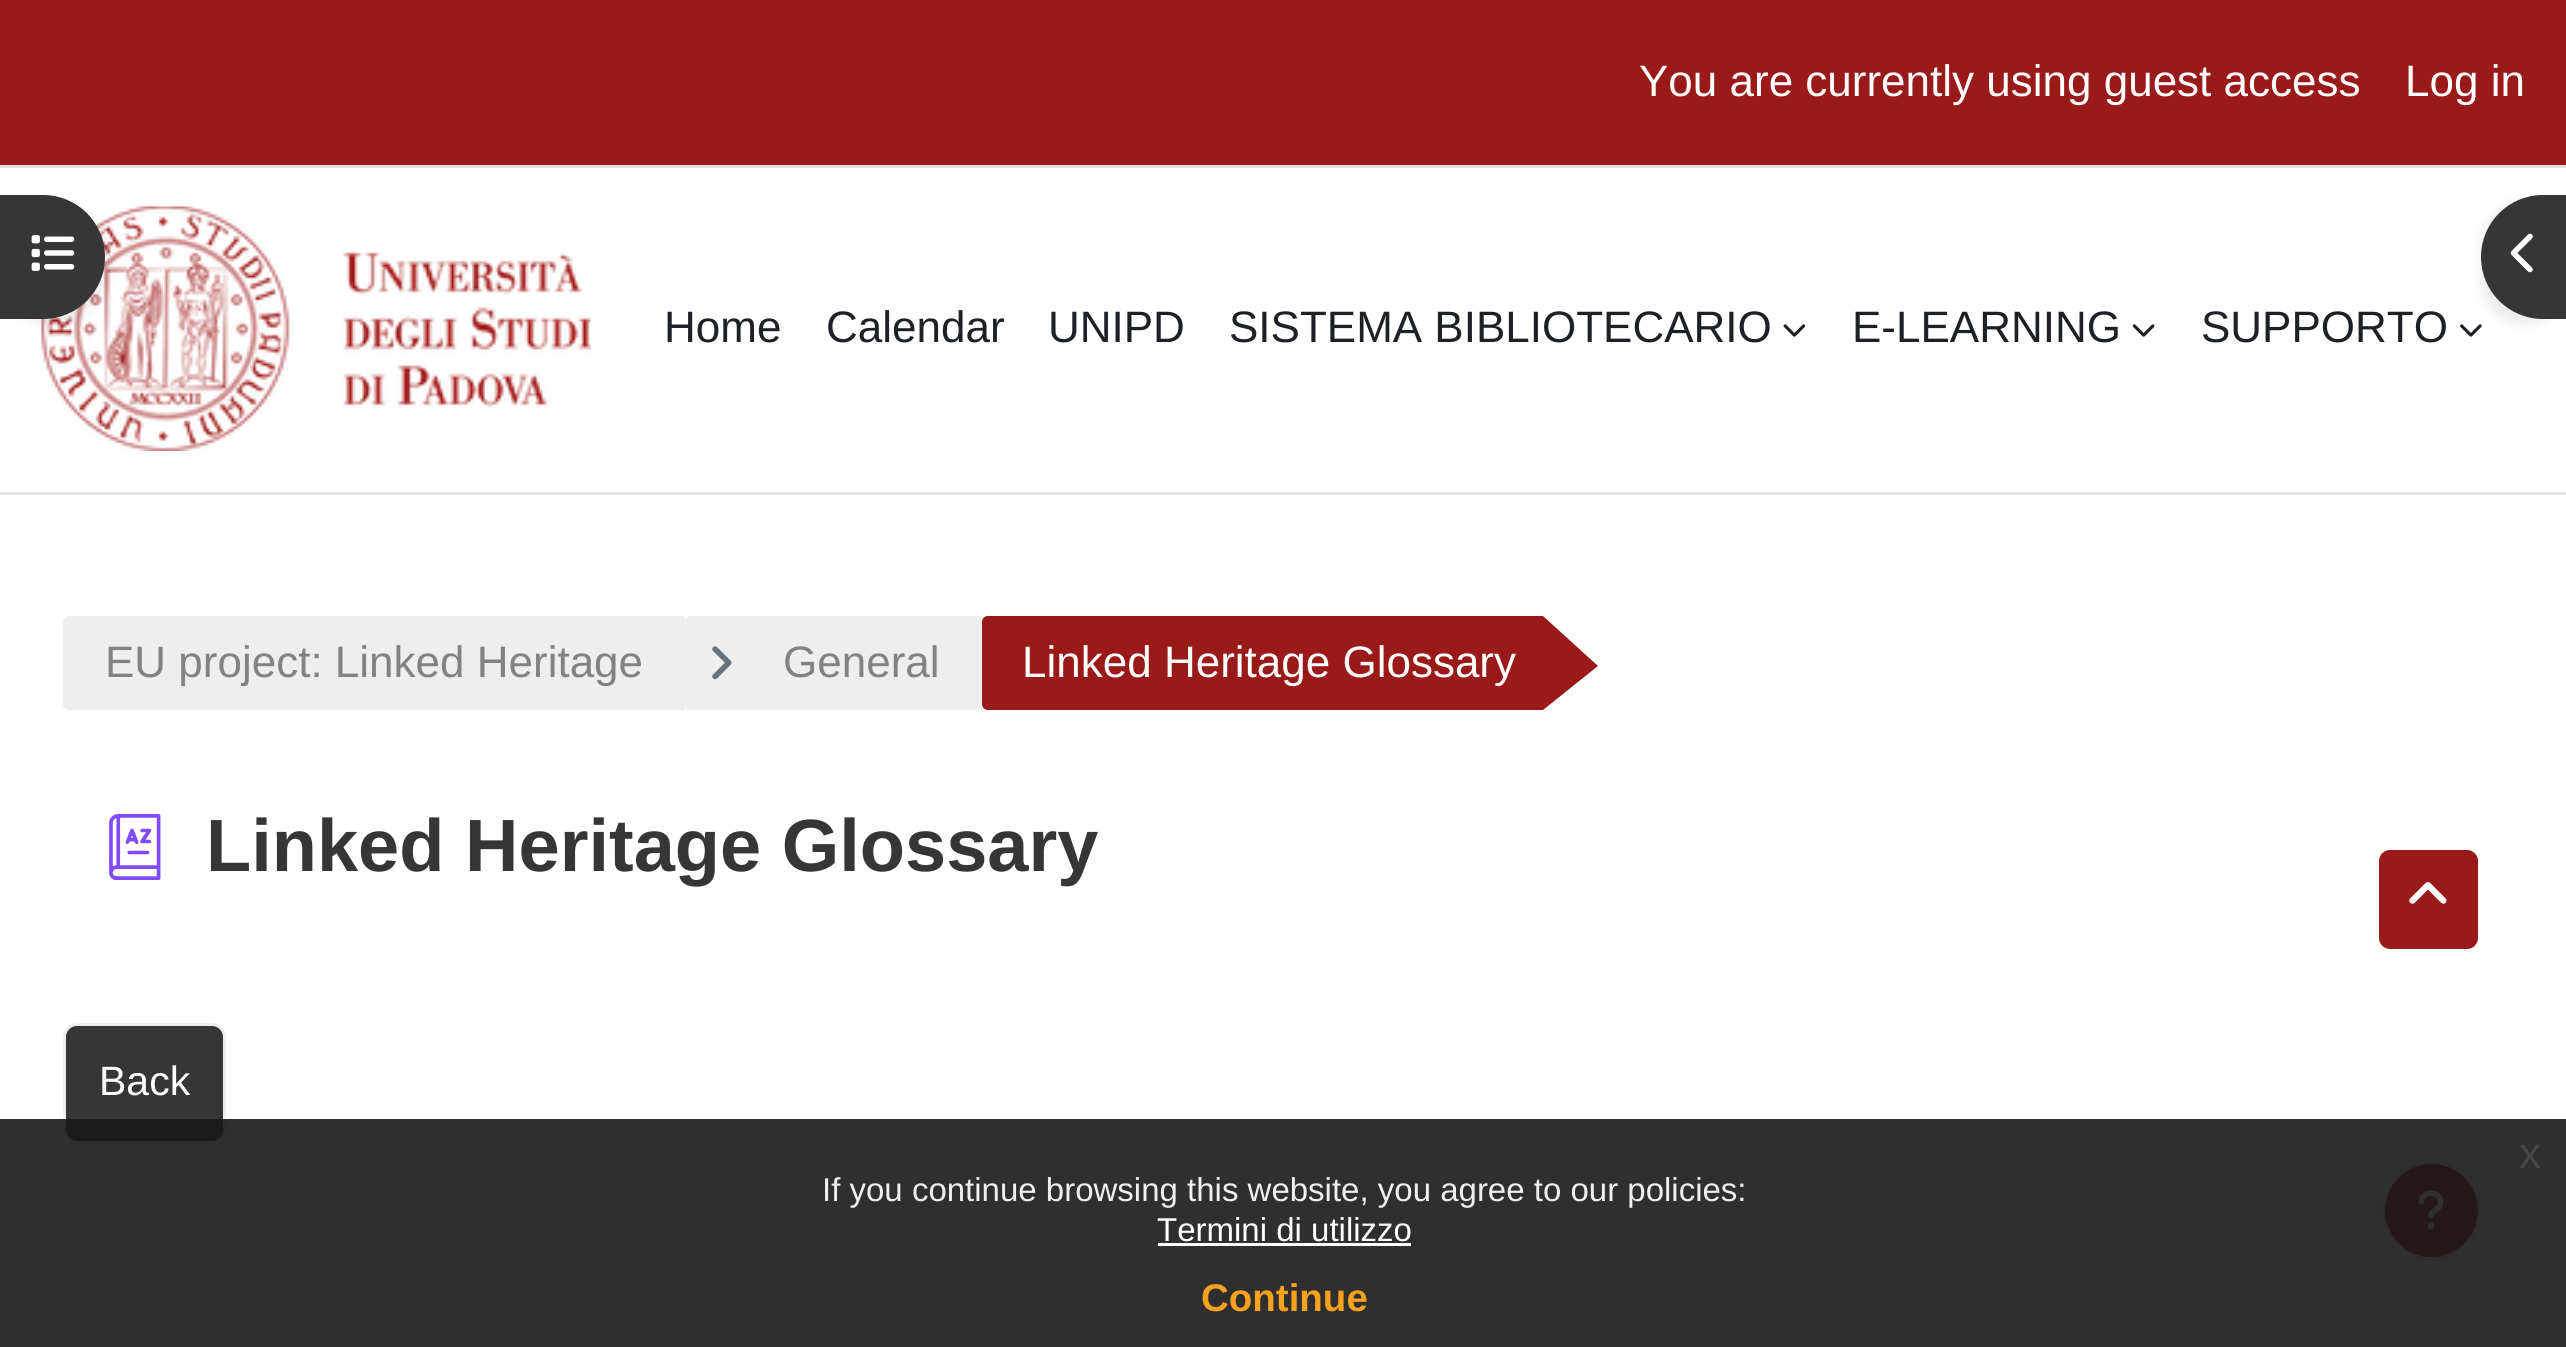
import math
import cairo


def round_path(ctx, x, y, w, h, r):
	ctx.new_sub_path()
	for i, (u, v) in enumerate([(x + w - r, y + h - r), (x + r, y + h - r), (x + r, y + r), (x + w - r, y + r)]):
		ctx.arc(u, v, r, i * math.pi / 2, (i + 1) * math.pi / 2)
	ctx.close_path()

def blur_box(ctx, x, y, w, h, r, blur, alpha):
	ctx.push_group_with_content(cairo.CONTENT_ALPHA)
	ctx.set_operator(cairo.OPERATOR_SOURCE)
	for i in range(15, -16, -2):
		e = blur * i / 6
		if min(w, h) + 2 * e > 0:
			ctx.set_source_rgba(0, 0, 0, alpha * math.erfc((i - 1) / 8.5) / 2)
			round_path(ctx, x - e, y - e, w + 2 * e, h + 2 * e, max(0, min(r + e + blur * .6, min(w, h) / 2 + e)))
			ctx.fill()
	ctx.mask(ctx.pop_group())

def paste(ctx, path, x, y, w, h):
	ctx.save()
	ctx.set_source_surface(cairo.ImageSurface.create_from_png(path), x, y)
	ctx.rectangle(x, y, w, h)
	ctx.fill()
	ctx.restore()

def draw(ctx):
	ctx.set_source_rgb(1, 1, 1)
	ctx.paint()
	ctx.set_source_rgb(0.604, 0.098, 0.098)
	ctx.rectangle(0, 0, 2566, 165)
	ctx.fill()
	ctx.set_source_rgb(0.91, 0.89, 0.89)
	ctx.rectangle(0, 165, 2566, 3)
	ctx.fill()
	ctx.select_font_face('Liberation Sans')
	ctx.set_font_size(44)
	ctx.set_source_rgb(1, 1, 1)
	ctx.move_to(1639, 96)
	ctx.show_text('You are currently using guest access')
	ctx.move_to(2405, 96)
	ctx.show_text('Log in')
	ctx.set_source_rgb(0.91, 0.89, 0.89)
	ctx.rectangle(0, 492, 2566, 3)
	ctx.fill()
	paste(ctx, 'media/1.png', 41, 206, 550, 245)
	ctx.set_source_rgb(0.114, 0.129, 0.145)
	for x, y, s in [
		(664, 342, 'Home'),
		(826, 342, 'Calendar'),
		(1048, 342, 'UNIPD'),
		(1229, 342, 'SISTEMA BIBLIOTECARIO'),
	]:
		ctx.move_to(x, y)
		ctx.show_text(s)
	paste(ctx, 'media/2.png', 1783, 324, 23, 13)
	ctx.move_to(1852, 342)
	ctx.show_text('E-LEARNING')
	paste(ctx, 'media/3.png', 2132, 324, 23, 13)
	ctx.move_to(2201, 342)
	ctx.show_text('SUPPORTO')
	paste(ctx, 'media/4.png', 2460, 324, 22, 13)
	ctx.set_source_rgb(0, 0, 0)
	blur_box(ctx, 0, 201, 105, 124, 62, 5.5, 0.07)
	ctx.set_source_rgb(0.212, 0.212, 0.212)
	ctx.new_path()
	ctx.move_to(1.5, 196.5)
	ctx.line_to(43, 196.5)
	ctx.curve_to(76.5, 196.5, 103.5, 223.5, 103.5, 257)
	ctx.curve_to(103.5, 290.5, 76.5, 317.5, 43, 317.5)
	ctx.line_to(1.5, 317.5)
	ctx.close_path()
	ctx.fill_preserve()
	ctx.set_line_width(3)
	ctx.stroke()
	paste(ctx, 'media/5.png', 31, 235, 44, 36)
	ctx.set_source_rgb(0, 0, 0)
	blur_box(ctx, 2481, 201, 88, 124, 62, 5.5, 0.07)
	ctx.set_source_rgb(0.212, 0.212, 0.212)
	ctx.new_path()
	ctx.move_to(2543, 196.5)
	ctx.line_to(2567.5, 196.5)
	ctx.line_to(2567.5, 317.5)
	ctx.line_to(2543, 317.5)
	ctx.curve_to(2509.5, 317.5, 2482.5, 290.5, 2482.5, 257)
	ctx.curve_to(2482.5, 223.5, 2509.5, 196.5, 2543, 196.5)
	ctx.close_path()
	ctx.fill_preserve()
	ctx.stroke()
	paste(ctx, 'media/6.png', 2510, 233, 23, 40)
	ctx.set_source_rgb(0.933, 0.933, 0.933)
	ctx.new_path()
	ctx.move_to(69, 616)
	ctx.line_to(685, 616)
	ctx.line_to(685, 710)
	ctx.line_to(69, 710)
	ctx.curve_to(65.5, 710, 63, 707.5, 63, 704)
	ctx.line_to(63, 622)
	ctx.curve_to(63, 618.5, 65.5, 616, 69, 616)
	ctx.close_path()
	ctx.fill()
	ctx.set_source_rgb(0.51, 0.51, 0.51)
	ctx.move_to(105, 677)
	ctx.show_text('EU project: Linked Heritage')
	ctx.set_source_rgb(0.933, 0.933, 0.933)
	ctx.new_path()
	ctx.move_to(691, 616)
	ctx.line_to(982, 616)
	ctx.line_to(982, 710)
	ctx.line_to(691, 710)
	ctx.curve_to(687.5, 710, 685, 707.5, 685, 704)
	ctx.line_to(685, 622)
	ctx.curve_to(685, 618.5, 687.5, 616, 691, 616)
	ctx.close_path()
	ctx.fill()
	paste(ctx, 'media/7.png', 712, 646, 20, 34)
	ctx.set_source_rgb(0.51, 0.51, 0.51)
	ctx.move_to(783, 677)
	ctx.show_text('General')
	ctx.set_source_rgb(0.604, 0.098, 0.098)
	ctx.new_path()
	ctx.move_to(988, 616)
	ctx.line_to(1543, 616)
	ctx.line_to(1543, 710)
	ctx.line_to(988, 710)
	ctx.curve_to(984.5, 710, 982, 707.5, 982, 704)
	ctx.line_to(982, 622)
	ctx.curve_to(982, 618.5, 984.5, 616, 988, 616)
	ctx.close_path()
	ctx.fill()
	ctx.set_source_rgb(1, 1, 1)
	ctx.move_to(1022, 677)
	ctx.show_text('Linked Heritage Glossary')
	ctx.set_source_rgb(0.604, 0.098, 0.098)
	ctx.new_path()
	ctx.move_to(1543, 710)
	ctx.line_to(1543, 616)
	ctx.line_to(1598, 666)
	ctx.close_path()
	ctx.fill()
	paste(ctx, 'media/8.png', 109, 814, 52, 66)
	ctx.select_font_face('Liberation Sans', cairo.FONT_SLANT_NORMAL, cairo.FONT_WEIGHT_BOLD)
	ctx.set_font_size(74)
	ctx.set_source_rgb(0.212, 0.212, 0.212)
	ctx.move_to(206, 871)
	ctx.show_text('Linked Heritage Glossary')
	round_path(ctx, 64.5, 1024.5, 160, 118, 12.5)
	ctx.fill_preserve()
	ctx.set_source_rgb(0.933, 0.933, 0.933)
	ctx.stroke()
	ctx.select_font_face('Liberation Sans')
	ctx.set_font_size(41)
	ctx.set_source_rgb(1, 1, 1)
	ctx.move_to(99, 1095)
	ctx.show_text('Back')
	ctx.set_source_rgb(0.604, 0.098, 0.098)
	round_path(ctx, 2377.5, 848.5, 102, 102, 12.5)
	ctx.fill_preserve()
	ctx.set_source_rgb(1, 1, 1)
	ctx.stroke()
	paste(ctx, 'media/9.png', 2409, 882, 38, 22)
	ctx.set_source_rgb(0.604, 0.098, 0.098)
	ctx.arc(2431.5, 1210.5, 48, 0, 2 * math.pi)
	ctx.fill_preserve()
	ctx.set_source_rgb(0.933, 0.933, 0.933)
	ctx.stroke()
	paste(ctx, 'media/10.png', 2418, 1190, 26, 40)
	ctx.set_source_rgba(0.098, 0.098, 0.098, 0.9)
	ctx.rectangle(0, 1119, 2566, 228)
	ctx.fill()
	ctx.set_font_size(44)
	ctx.set_source_rgb(0.278, 0.278, 0.278)
	ctx.move_to(2519, 1168)
	ctx.show_text('x')
	ctx.set_font_size(33)
	ctx.set_source_rgb(0.937, 0.937, 0.937)
	ctx.move_to(822, 1201)
	ctx.show_text('If you continue browsing this website, you agree to our policies:')
	ctx.set_source_rgb(1, 1, 1)
	ctx.move_to(1157, 1241)
	ctx.show_text('Termini di utilizzo')
	ctx.rectangle(1158, 1243, 253, 3)
	ctx.fill()
	ctx.select_font_face('Liberation Sans', cairo.FONT_SLANT_NORMAL, cairo.FONT_WEIGHT_BOLD)
	ctx.set_font_size(38.5)
	ctx.set_source_rgb(0.965, 0.635, 0.114)
	ctx.move_to(1201, 1311)
	ctx.show_text('Continue')


surface = cairo.ImageSurface(cairo.FORMAT_RGB24, 2566, 1347)
ctx = cairo.Context(surface)
options = cairo.FontOptions()
options.set_hint_metrics(cairo.HINT_METRICS_OFF)
options.set_hint_style(cairo.HINT_STYLE_NONE)
ctx.set_font_options(options)
ctx.set_miter_limit(4)
draw(ctx)
surface.write_to_png('image.png')
